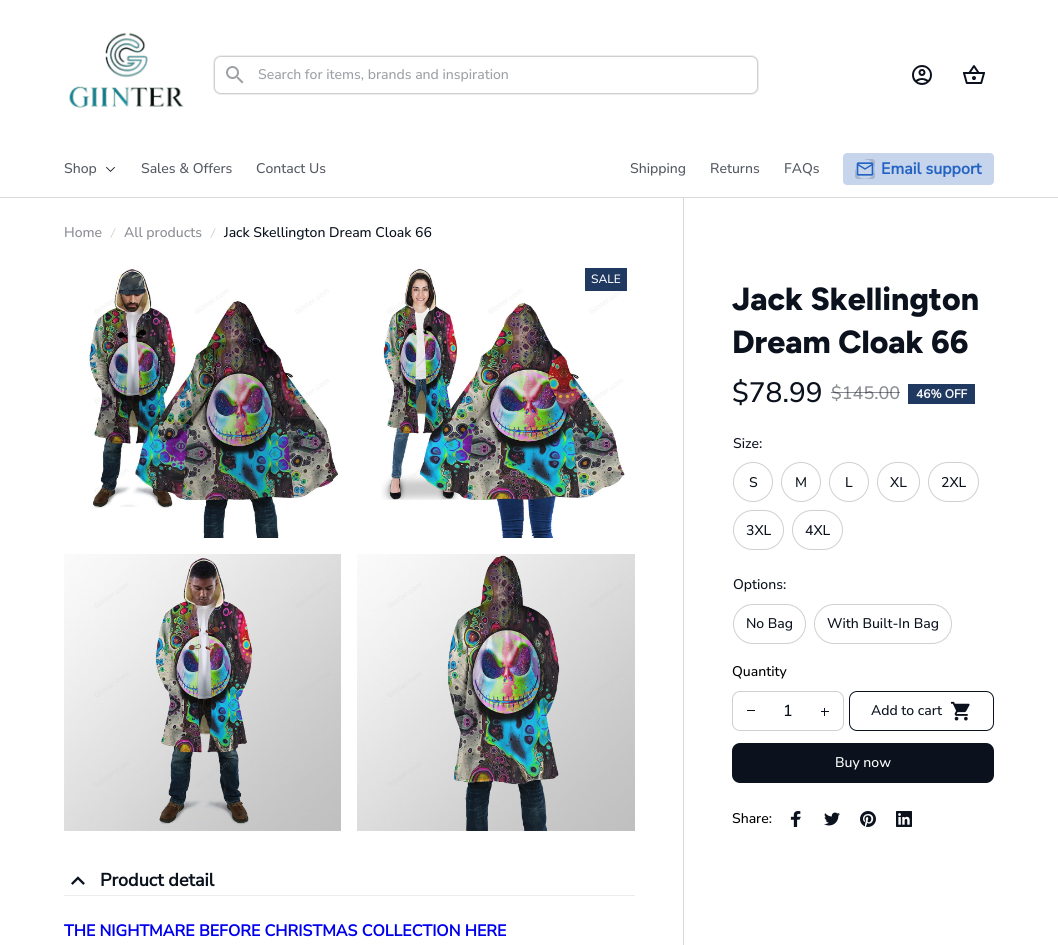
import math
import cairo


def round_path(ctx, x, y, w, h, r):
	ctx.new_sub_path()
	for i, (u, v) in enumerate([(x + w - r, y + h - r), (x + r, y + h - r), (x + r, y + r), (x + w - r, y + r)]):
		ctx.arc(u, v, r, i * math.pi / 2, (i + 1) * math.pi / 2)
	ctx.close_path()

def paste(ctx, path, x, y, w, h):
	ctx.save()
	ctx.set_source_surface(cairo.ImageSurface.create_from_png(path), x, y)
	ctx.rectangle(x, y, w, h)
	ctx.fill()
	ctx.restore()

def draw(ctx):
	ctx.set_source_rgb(1, 1, 1)
	ctx.paint()
	ctx.set_source_rgb(0.847, 0.851, 0.859)
	ctx.rectangle(0, 197, 1058, 1)
	ctx.fill()
	paste(ctx, 'media/1.png', 69, 32, 115, 76)
	round_path(ctx, 213.5, 55.5, 545, 39, 7.5)
	ctx.set_source_rgba(0.302, 0.302, 0.302, 0.1)
	ctx.set_line_width(1)
	ctx.stroke()
	round_path(ctx, 214.5, 56.5, 543, 37, 6.5)
	ctx.set_source_rgba(0.043, 0.071, 0.118, 0.2)
	ctx.stroke()
	paste(ctx, 'media/2.png', 226, 66, 18, 18)
	ctx.select_font_face('Nunito Sans Medium')
	ctx.set_font_size(14)
	ctx.set_source_rgb(0.616, 0.627, 0.647)
	ctx.move_to(258, 79)
	ctx.show_text('Search for items, brands and inspiration')
	paste(ctx, 'media/3.png', 912, 65, 20, 20)
	paste(ctx, 'media/4.png', 962, 65, 24, 19)
	ctx.set_source_rgb(0.329, 0.349, 0.384)
	ctx.move_to(64, 173)
	ctx.show_text('Shop')
	paste(ctx, 'media/5.png', 106, 167, 9, 5)
	for x, y, s in [
		(141, 173, 'Sales & Offers'),
		(256, 173, 'Contact Us'),
		(630, 173, 'Shipping'),
		(710, 173, 'Returns'),
		(784, 173, 'FAQs'),
	]:
		ctx.move_to(x, y)
		ctx.show_text(s)
	ctx.set_source_rgb(0.776, 0.835, 0.925)
	round_path(ctx, 843, 153, 151, 32, 4)
	ctx.fill()
	ctx.save()
	ctx.rectangle(855, 159, 20, 20)
	ctx.clip()
	ctx.new_path()
	ctx.move_to(865, 158)
	ctx.curve_to(878.5, 158, 880.5, 177.5, 867.5, 180)
	ctx.curve_to(864.5, 180.5, 861, 180, 858.5, 178.5)
	ctx.curve_to(855.5, 176, 854, 172.5, 854, 169)
	ctx.set_source_rgb(0.663, 0.714, 0.792)
	ctx.set_line_width(3.2)
	ctx.stroke()
	ctx.restore()
	paste(ctx, 'media/6.png', 856, 162, 18, 14)
	ctx.select_font_face('Nunito Sans', cairo.FONT_SLANT_NORMAL, cairo.FONT_WEIGHT_BOLD)
	ctx.set_font_size(16)
	ctx.set_source_rgb(0.133, 0.388, 0.765)
	ctx.move_to(881, 174)
	ctx.show_text('Email support')
	ctx.set_source_rgb(0.847, 0.851, 0.859)
	ctx.rectangle(683, 198, 1, 747)
	ctx.fill()
	ctx.select_font_face('Nunito Sans Medium')
	ctx.set_font_size(14)
	ctx.set_source_rgb(0.541, 0.553, 0.576)
	ctx.move_to(64, 237)
	ctx.show_text('Home')
	ctx.set_source_rgb(0.769, 0.78, 0.769)
	ctx.new_path()
	ctx.move_to(111, 238)
	ctx.line_to(110.5, 237.5)
	ctx.line_to(115, 228)
	ctx.line_to(115.5, 228.5)
	ctx.close_path()
	ctx.fill()
	ctx.set_source_rgb(0.541, 0.553, 0.576)
	ctx.move_to(124, 237)
	ctx.show_text('All products')
	ctx.set_source_rgb(0.769, 0.78, 0.769)
	ctx.new_path()
	ctx.move_to(211, 238)
	ctx.line_to(210.5, 237.5)
	ctx.line_to(215, 228)
	ctx.line_to(215.5, 228.5)
	ctx.close_path()
	ctx.fill()
	ctx.set_source_rgb(0.043, 0.071, 0.118)
	ctx.move_to(224, 237)
	ctx.show_text('Jack Skellington Dream Cloak 66')
	paste(ctx, 'media/7.png', 86, 269, 253, 269)
	paste(ctx, 'media/8.png', 381, 268, 244, 270)
	paste(ctx, 'media/9.png', 64, 554, 277, 277)
	paste(ctx, 'media/10.png', 357, 554, 278, 277)
	ctx.set_source_rgb(0.125, 0.224, 0.376)
	ctx.rectangle(585, 268, 42, 23)
	ctx.fill()
	ctx.set_font_size(12)
	ctx.set_source_rgb(1, 1, 1)
	ctx.move_to(591, 283)
	ctx.show_text('SALE')
	paste(ctx, 'media/11.png', 71, 876, 14, 9)
	ctx.select_font_face('Nunito Sans', cairo.FONT_SLANT_NORMAL, cairo.FONT_WEIGHT_BOLD)
	ctx.set_font_size(18)
	ctx.set_source_rgb(0.043, 0.071, 0.118)
	ctx.move_to(100, 886)
	ctx.show_text('Product detail')
	ctx.set_source_rgb(0.922, 0.925, 0.929)
	ctx.rectangle(64, 895, 571, 1)
	ctx.fill()
	ctx.set_font_size(16)
	ctx.set_source_rgb(0, 0, 0.929)
	ctx.move_to(64, 936)
	ctx.show_text('THE NIGHTMARE BEFORE CHRISTMAS COLLECTION HERE')
	ctx.select_font_face('Figtree ExtraBold')
	ctx.set_font_size(32)
	ctx.set_source_rgb(0.043, 0.071, 0.118)
	ctx.move_to(732, 310)
	ctx.show_text('Jack Skellington')
	ctx.move_to(732, 353)
	ctx.show_text('Dream Cloak 66')
	ctx.select_font_face('Nunito Sans Medium')
	ctx.set_font_size(28)
	ctx.move_to(732, 402)
	ctx.show_text('$78.99')
	ctx.set_font_size(18)
	ctx.set_source_rgb(0.541, 0.553, 0.576)
	ctx.move_to(831, 399)
	ctx.show_text('$145.00')
	ctx.set_source_rgba(0.043, 0.071, 0.118, 0.48)
	ctx.rectangle(831, 392, 69, 1)
	ctx.fill()
	ctx.set_source_rgb(0.125, 0.224, 0.376)
	ctx.rectangle(908, 384, 67, 20)
	ctx.fill()
	ctx.select_font_face('Nunito Sans', cairo.FONT_SLANT_NORMAL, cairo.FONT_WEIGHT_BOLD)
	ctx.set_font_size(12)
	ctx.set_source_rgb(0.969, 0.976, 0.988)
	ctx.move_to(916, 398)
	ctx.show_text('46% OFF')
	ctx.select_font_face('Nunito Sans Medium')
	ctx.set_font_size(14)
	ctx.set_source_rgb(0.043, 0.071, 0.118)
	ctx.move_to(733, 448)
	ctx.show_text('Size:')
	ctx.new_path()
	ctx.arc(753, 482, 19.5, 0, 2 * math.pi)
	ctx.set_source_rgb(0.808, 0.816, 0.824)
	ctx.stroke()
	ctx.set_source_rgb(0.043, 0.071, 0.118)
	ctx.move_to(749, 487)
	ctx.show_text('S')
	ctx.new_path()
	ctx.arc(801, 482, 19.5, 0, 2 * math.pi)
	ctx.set_source_rgb(0.808, 0.816, 0.824)
	ctx.stroke()
	ctx.set_source_rgb(0.043, 0.071, 0.118)
	ctx.move_to(795, 487)
	ctx.show_text('M')
	ctx.new_path()
	ctx.arc(849, 482, 19.5, 0, 2 * math.pi)
	ctx.set_source_rgb(0.808, 0.816, 0.824)
	ctx.stroke()
	ctx.set_source_rgb(0.043, 0.071, 0.118)
	ctx.move_to(845, 487)
	ctx.show_text('L')
	round_path(ctx, 877.5, 462.5, 42, 39, 19.5)
	ctx.set_source_rgb(0.808, 0.816, 0.824)
	ctx.stroke()
	ctx.set_source_rgb(0.043, 0.071, 0.118)
	ctx.move_to(890, 487)
	ctx.show_text('XL')
	round_path(ctx, 928.5, 462.5, 50, 39, 19.5)
	ctx.set_source_rgb(0.808, 0.816, 0.824)
	ctx.stroke()
	ctx.set_source_rgb(0.043, 0.071, 0.118)
	ctx.move_to(941, 487)
	ctx.show_text('2XL')
	round_path(ctx, 733.5, 510.5, 50, 39, 19.5)
	ctx.set_source_rgb(0.808, 0.816, 0.824)
	ctx.stroke()
	ctx.set_source_rgb(0.043, 0.071, 0.118)
	ctx.move_to(746, 535)
	ctx.show_text('3XL')
	round_path(ctx, 792.5, 510.5, 50, 39, 19.5)
	ctx.set_source_rgb(0.808, 0.816, 0.824)
	ctx.stroke()
	ctx.set_source_rgb(0.043, 0.071, 0.118)
	ctx.move_to(805, 535)
	ctx.show_text('4XL')
	ctx.move_to(733, 589)
	ctx.show_text('Options:')
	round_path(ctx, 733.5, 604.5, 72, 39, 19.5)
	ctx.set_source_rgb(0.808, 0.816, 0.824)
	ctx.stroke()
	ctx.set_source_rgb(0.043, 0.071, 0.118)
	ctx.move_to(746, 628)
	ctx.show_text('No Bag')
	round_path(ctx, 814.5, 604.5, 137, 39, 19.5)
	ctx.set_source_rgb(0.808, 0.816, 0.824)
	ctx.stroke()
	ctx.set_source_rgb(0.043, 0.071, 0.118)
	ctx.move_to(827, 628)
	ctx.show_text('With Built-In Bag')
	ctx.set_source_rgb(0, 0, 0)
	ctx.move_to(732, 676)
	ctx.show_text('Quantity')
	round_path(ctx, 732.5, 691.5, 111, 39, 7.5)
	ctx.set_source_rgb(0.808, 0.816, 0.824)
	ctx.stroke()
	ctx.set_source_rgb(0.043, 0.071, 0.118)
	ctx.rectangle(747, 710, 8, 1)
	ctx.fill()
	ctx.set_font_size(16)
	ctx.move_to(783, 716)
	ctx.show_text('1')
	ctx.rectangle(821, 711, 8, 1)
	ctx.fill()
	ctx.rectangle(824, 708, 1, 8)
	ctx.fill()
	round_path(ctx, 849.5, 691.5, 144, 39, 7.5)
	ctx.stroke()
	ctx.set_font_size(14)
	ctx.move_to(871, 715)
	ctx.show_text('Add to cart')
	paste(ctx, 'media/12.png', 950, 701, 20, 20)
	round_path(ctx, 732, 743, 262, 40, 8)
	ctx.fill()
	ctx.set_source_rgb(1, 1, 1)
	ctx.move_to(835, 767)
	ctx.show_text('Buy now')
	ctx.set_source_rgb(0, 0, 0)
	ctx.move_to(732, 823)
	ctx.show_text('Share:')
	paste(ctx, 'media/13.png', 790, 811, 11, 16)
	paste(ctx, 'media/14.png', 824, 812, 16, 14)
	paste(ctx, 'media/15.png', 860, 811, 16, 16)
	paste(ctx, 'media/16.png', 896, 811, 16, 16)


surface = cairo.ImageSurface(cairo.FORMAT_RGB24, 1058, 945)
ctx = cairo.Context(surface)
options = cairo.FontOptions()
options.set_hint_metrics(cairo.HINT_METRICS_OFF)
options.set_hint_style(cairo.HINT_STYLE_NONE)
ctx.set_font_options(options)
ctx.set_miter_limit(4)
draw(ctx)
surface.write_to_png('image.png')
